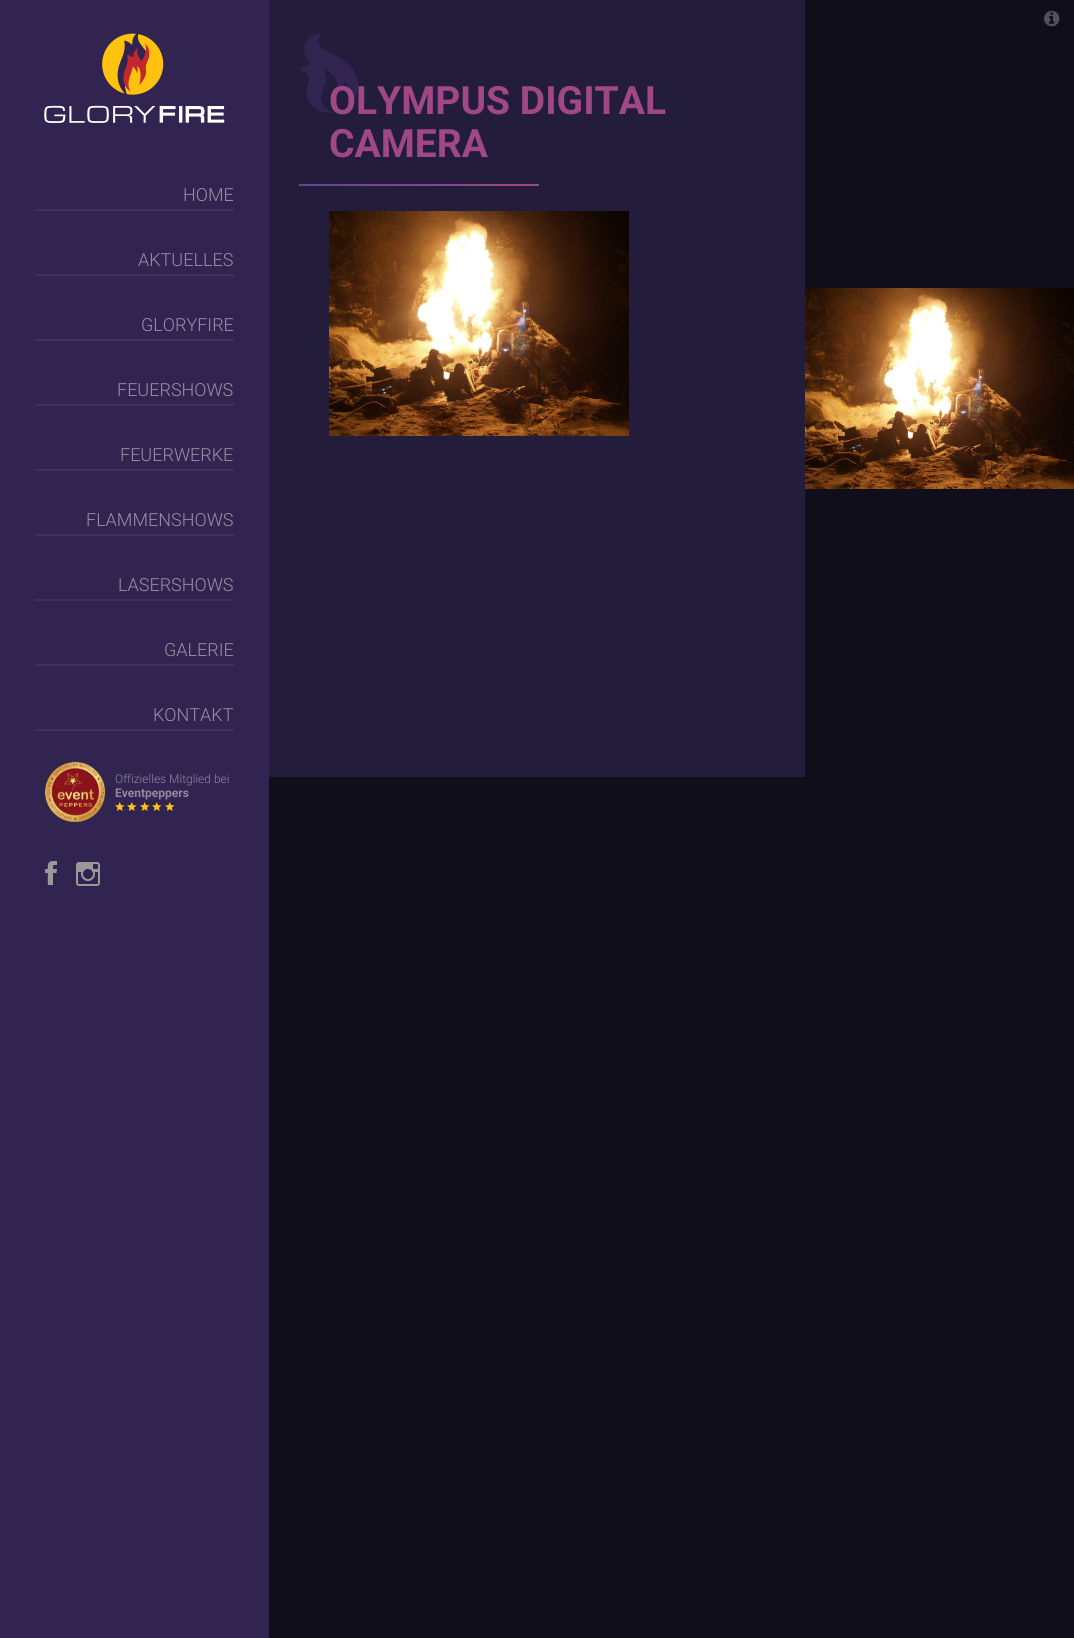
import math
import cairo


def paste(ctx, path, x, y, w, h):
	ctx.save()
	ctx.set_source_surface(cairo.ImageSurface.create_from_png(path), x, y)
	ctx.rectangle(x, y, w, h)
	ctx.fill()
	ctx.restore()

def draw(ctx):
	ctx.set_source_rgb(0.067, 0.055, 0.106)
	ctx.paint()
	paste(ctx, 'media/1.png', 1044, 10, 16, 17)
	ctx.set_source_rgb(0.137, 0.11, 0.227)
	ctx.rectangle(269, 0, 536, 777)
	ctx.fill()
	paste(ctx, 'media/2.png', 300, 34, 59, 79)
	ctx.select_font_face('Roboto', cairo.FONT_SLANT_NORMAL, cairo.FONT_WEIGHT_BOLD)
	ctx.set_font_size(39)
	ctx.set_source_rgb(0.627, 0.278, 0.525)
	ctx.move_to(329, 114)
	ctx.show_text('OLYMPUS DIGITAL')
	ctx.move_to(329, 157)
	ctx.show_text('CAMERA')
	gradient = cairo.LinearGradient(299, 185, 539, 185)
	gradient.add_color_stop_rgba(0, 0.376, 0.275, 0.608, 1)
	gradient.add_color_stop_rgba(1, 0.627, 0.278, 0.525, 1)
	ctx.set_source(gradient)
	ctx.rectangle(299, 184, 240, 2)
	ctx.fill()
	paste(ctx, 'media/3.png', 329, 211, 300, 225)
	paste(ctx, 'media/4.png', 805, 288, 269, 201)
	ctx.set_source_rgb(0.192, 0.141, 0.314)
	ctx.rectangle(0, 0, 269, 1638)
	ctx.fill()
	paste(ctx, 'media/5.png', 44, 33, 181, 90)
	ctx.set_source_rgb(0.239, 0.192, 0.376)
	ctx.rectangle(35, 209, 199, 2)
	ctx.fill()
	ctx.select_font_face('Roboto Light')
	ctx.set_font_size(18)
	ctx.set_source_rgb(0.592, 0.565, 0.647)
	ctx.move_to(183, 201)
	ctx.show_text('HOME')
	ctx.set_source_rgb(0.239, 0.192, 0.376)
	ctx.rectangle(35, 274, 199, 2)
	ctx.fill()
	ctx.set_source_rgb(0.592, 0.565, 0.647)
	ctx.move_to(138, 266)
	ctx.show_text('AKTUELLES')
	ctx.set_source_rgb(0.239, 0.192, 0.376)
	ctx.rectangle(35, 339, 199, 2)
	ctx.fill()
	ctx.set_source_rgb(0.592, 0.565, 0.647)
	ctx.move_to(141, 331)
	ctx.show_text('GLORYFIRE')
	ctx.set_source_rgb(0.239, 0.192, 0.376)
	ctx.rectangle(35, 404, 199, 2)
	ctx.fill()
	ctx.set_source_rgb(0.592, 0.565, 0.647)
	ctx.move_to(117, 396)
	ctx.show_text('FEUERSHOWS')
	ctx.set_source_rgb(0.239, 0.192, 0.376)
	ctx.rectangle(35, 469, 199, 2)
	ctx.fill()
	ctx.set_source_rgb(0.592, 0.565, 0.647)
	ctx.move_to(120, 461)
	ctx.show_text('FEUERWERKE')
	ctx.set_source_rgb(0.239, 0.192, 0.376)
	ctx.rectangle(35, 534, 199, 2)
	ctx.fill()
	ctx.set_source_rgb(0.592, 0.565, 0.647)
	ctx.move_to(86, 526)
	ctx.show_text('FLAMMENSHOWS')
	ctx.set_source_rgb(0.239, 0.192, 0.376)
	ctx.rectangle(35, 599, 199, 2)
	ctx.fill()
	ctx.set_source_rgb(0.592, 0.565, 0.647)
	ctx.move_to(118, 591)
	ctx.show_text('LASERSHOWS')
	ctx.set_source_rgb(0.239, 0.192, 0.376)
	ctx.rectangle(35, 664, 199, 2)
	ctx.fill()
	ctx.set_source_rgb(0.592, 0.565, 0.647)
	ctx.move_to(164, 656)
	ctx.show_text('GALERIE')
	ctx.set_source_rgb(0.239, 0.192, 0.376)
	ctx.rectangle(35, 729, 199, 2)
	ctx.fill()
	ctx.set_source_rgb(0.592, 0.565, 0.647)
	ctx.move_to(153, 721)
	ctx.show_text('KONTAKT')
	paste(ctx, 'media/6.png', 45, 761, 60, 61)
	ctx.set_font_size(12)
	ctx.set_source_rgb(0.569, 0.533, 0.627)
	ctx.move_to(115, 783)
	ctx.show_text('Offizielles Mitglied bei')
	ctx.select_font_face('Roboto', cairo.FONT_SLANT_NORMAL, cairo.FONT_WEIGHT_BOLD)
	ctx.move_to(115, 797)
	ctx.show_text('Eventpeppers')
	paste(ctx, 'media/7.png', 115, 802, 10, 9)
	paste(ctx, 'media/7.png', 127, 802, 10, 9)
	paste(ctx, 'media/7.png', 140, 802, 10, 9)
	paste(ctx, 'media/7.png', 152, 802, 10, 9)
	paste(ctx, 'media/7.png', 165, 802, 10, 9)
	paste(ctx, 'media/8.png', 45, 861, 12, 24)
	paste(ctx, 'media/9.png', 76, 862, 24, 24)


surface = cairo.ImageSurface(cairo.FORMAT_RGB24, 1074, 1638)
ctx = cairo.Context(surface)
options = cairo.FontOptions()
options.set_hint_metrics(cairo.HINT_METRICS_OFF)
options.set_hint_style(cairo.HINT_STYLE_NONE)
ctx.set_font_options(options)
ctx.set_miter_limit(4)
draw(ctx)
surface.write_to_png('image.png')
